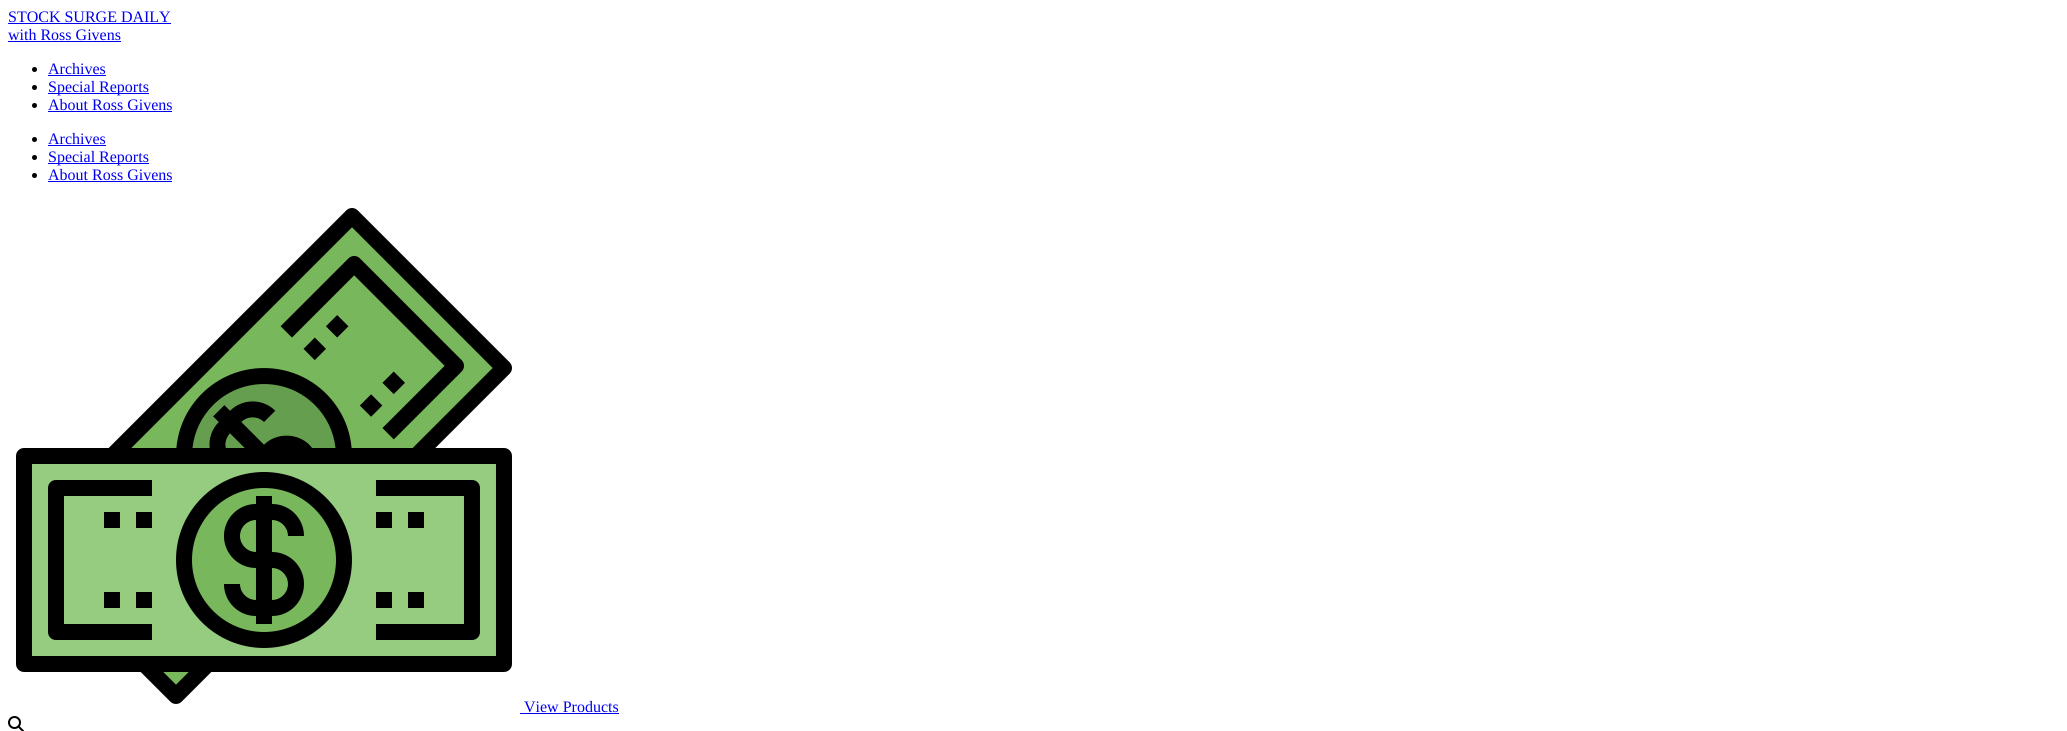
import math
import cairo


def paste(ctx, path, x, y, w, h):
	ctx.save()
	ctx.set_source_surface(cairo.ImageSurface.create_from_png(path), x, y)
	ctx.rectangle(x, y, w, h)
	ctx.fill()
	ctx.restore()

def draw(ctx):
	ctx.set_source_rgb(1, 1, 1)
	ctx.paint()
	ctx.select_font_face('Liberation Serif')
	ctx.set_font_size(16)
	ctx.set_source_rgb(0, 0, 0.933)
	ctx.move_to(8, 22)
	ctx.show_text('STOCK SURGE DAILY')
	ctx.rectangle(8, 23, 163, 1)
	ctx.fill()
	ctx.move_to(8, 40)
	ctx.show_text('with Ross Givens')
	ctx.rectangle(8, 41, 113, 1)
	ctx.fill()
	ctx.set_source_rgb(0, 0, 0)
	ctx.arc(34.5, 69.5, 2.5, 0, 2 * math.pi)
	ctx.fill()
	ctx.set_source_rgb(0, 0, 0.933)
	ctx.move_to(48, 74)
	ctx.show_text('Archives')
	ctx.rectangle(48, 75, 58, 1)
	ctx.fill()
	ctx.set_source_rgb(0, 0, 0)
	ctx.arc(34.5, 87.5, 2.5, 0, 2 * math.pi)
	ctx.fill()
	ctx.set_source_rgb(0, 0, 0.933)
	ctx.rectangle(48, 93, 101, 1)
	ctx.fill()
	ctx.move_to(48, 92)
	ctx.show_text('Special Reports')
	ctx.set_source_rgb(0, 0, 0)
	ctx.new_path()
	ctx.arc(34.5, 105.5, 2.5, 0, 2 * math.pi)
	ctx.fill()
	ctx.set_source_rgb(0, 0, 0.933)
	ctx.move_to(48, 110)
	ctx.show_text('About Ross Givens')
	ctx.rectangle(48, 111, 124, 1)
	ctx.fill()
	ctx.set_source_rgb(0, 0, 0)
	ctx.arc(34.5, 139.5, 2.5, 0, 2 * math.pi)
	ctx.fill()
	ctx.set_source_rgb(0, 0, 0.933)
	ctx.move_to(48, 144)
	ctx.show_text('Archives')
	ctx.rectangle(48, 145, 58, 1)
	ctx.fill()
	ctx.set_source_rgb(0, 0, 0)
	ctx.arc(34.5, 157.5, 2.5, 0, 2 * math.pi)
	ctx.fill()
	ctx.set_source_rgb(0, 0, 0.933)
	ctx.rectangle(48, 163, 101, 1)
	ctx.fill()
	ctx.move_to(48, 162)
	ctx.show_text('Special Reports')
	ctx.set_source_rgb(0, 0, 0)
	ctx.new_path()
	ctx.arc(34.5, 175.5, 2.5, 0, 2 * math.pi)
	ctx.fill()
	ctx.set_source_rgb(0, 0, 0.933)
	ctx.move_to(48, 180)
	ctx.show_text('About Ross Givens')
	ctx.rectangle(48, 181, 124, 1)
	ctx.fill()
	paste(ctx, 'media/1.png', 16, 208, 496, 496)
	ctx.move_to(524, 712)
	ctx.show_text('View Products')
	ctx.rectangle(520, 713, 99, 1)
	ctx.fill()
	paste(ctx, 'media/2.png', 8, 716, 16, 15)


surface = cairo.ImageSurface(cairo.FORMAT_RGB24, 2067, 731)
ctx = cairo.Context(surface)
options = cairo.FontOptions()
options.set_hint_metrics(cairo.HINT_METRICS_OFF)
options.set_hint_style(cairo.HINT_STYLE_NONE)
ctx.set_font_options(options)
ctx.set_miter_limit(4)
draw(ctx)
surface.write_to_png('image.png')
